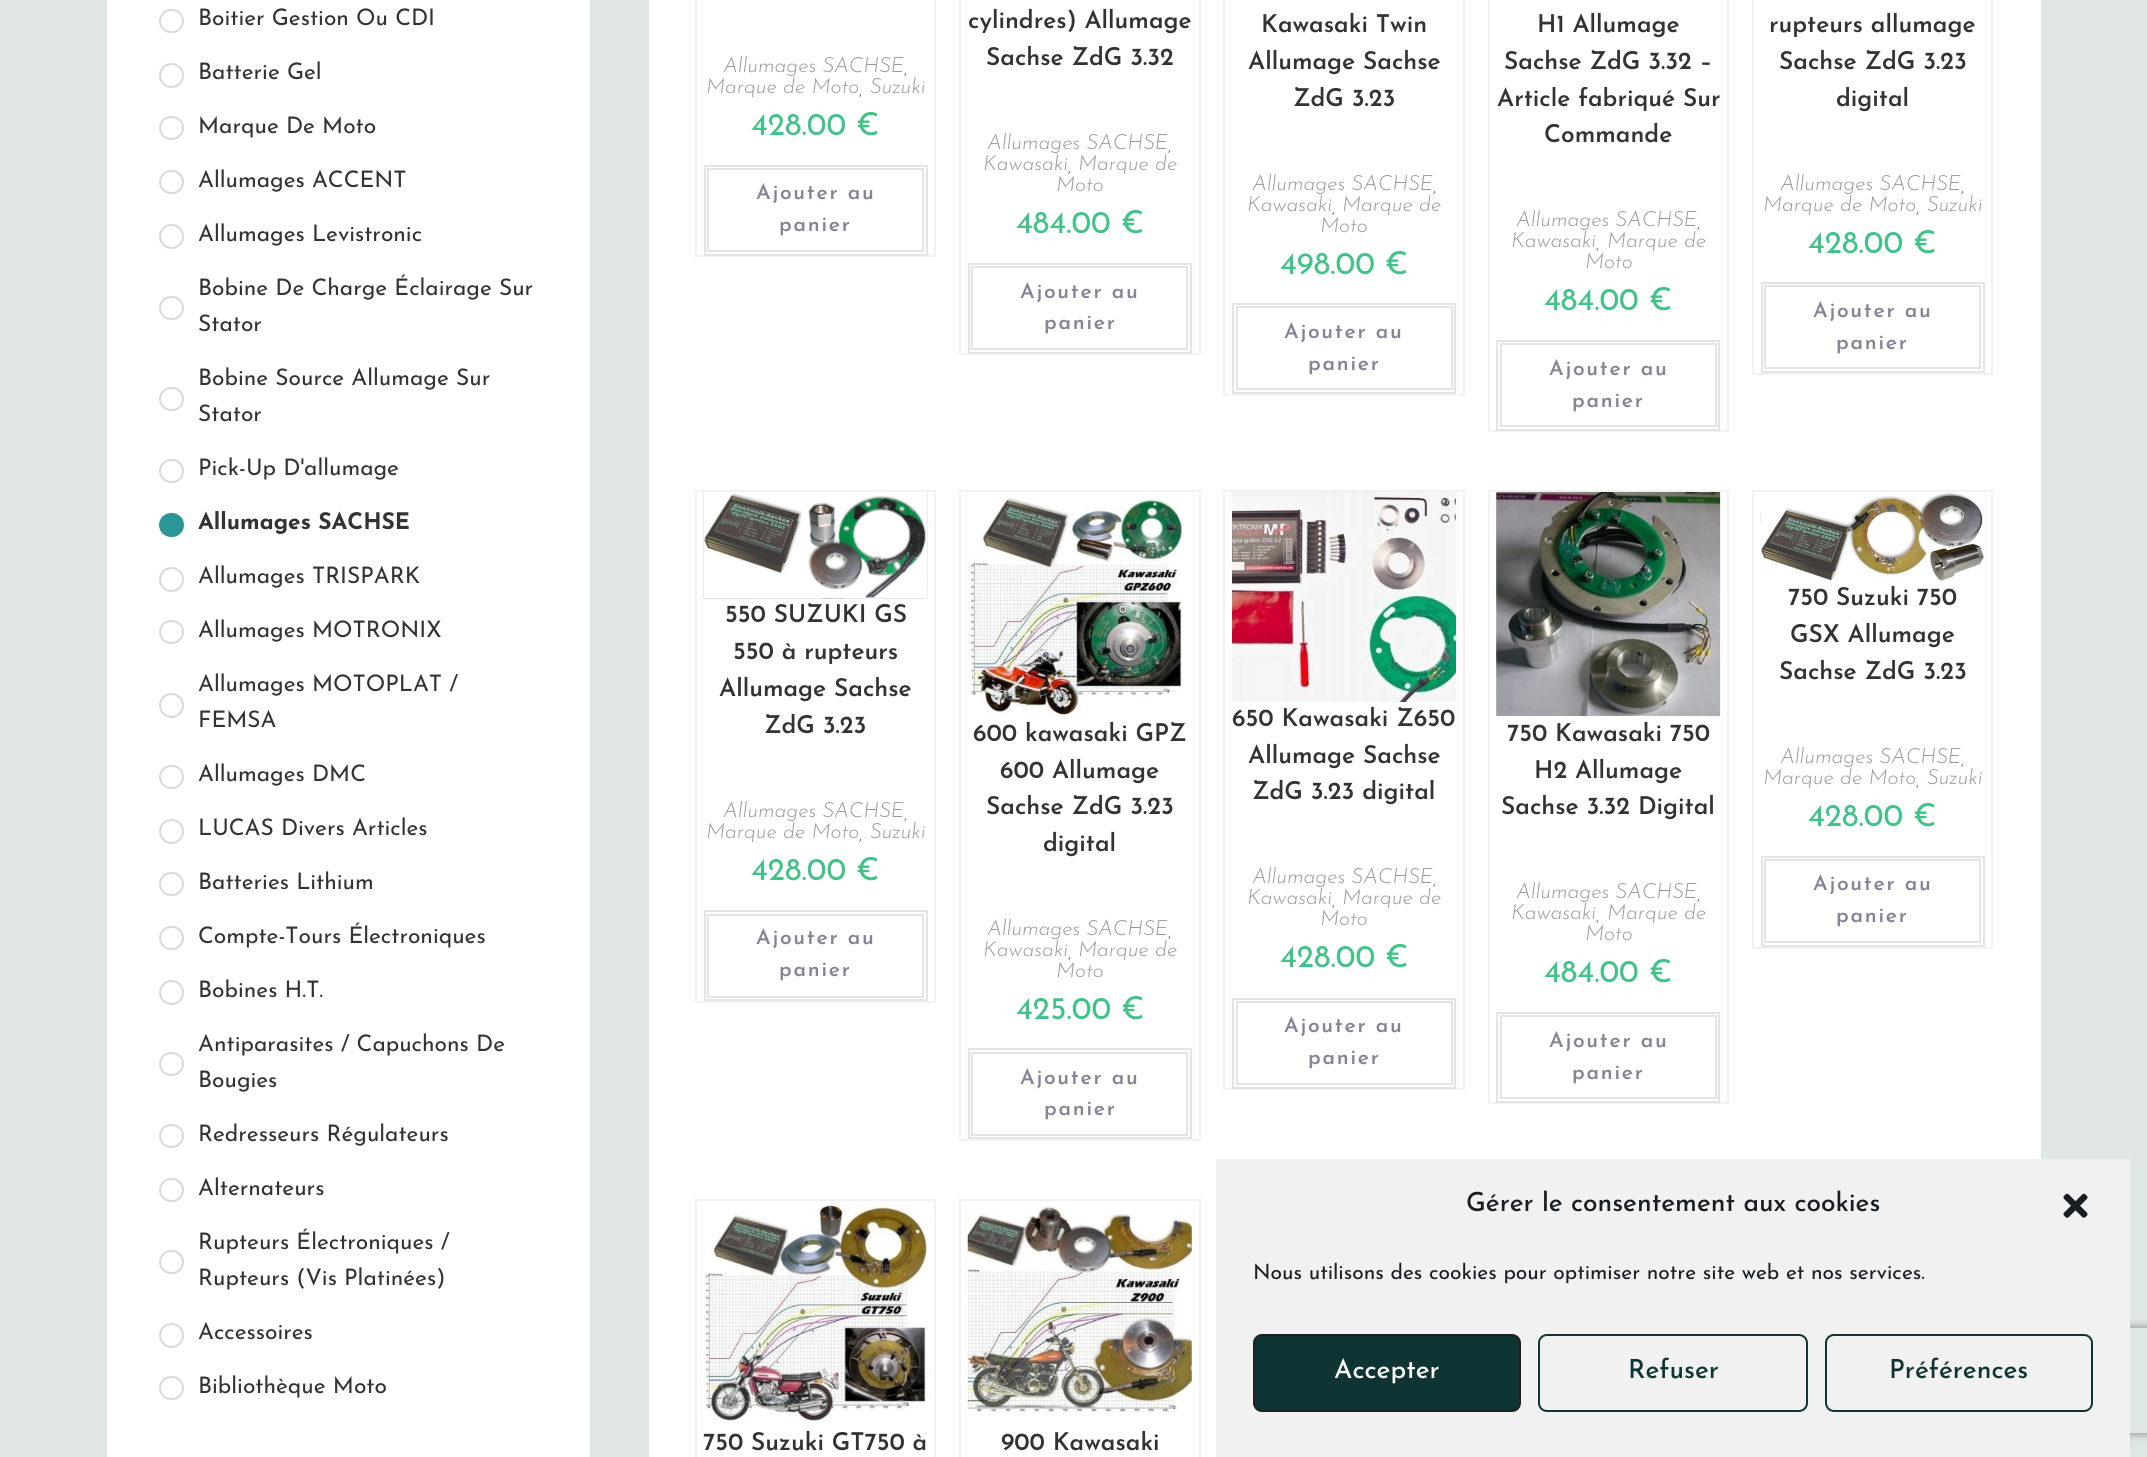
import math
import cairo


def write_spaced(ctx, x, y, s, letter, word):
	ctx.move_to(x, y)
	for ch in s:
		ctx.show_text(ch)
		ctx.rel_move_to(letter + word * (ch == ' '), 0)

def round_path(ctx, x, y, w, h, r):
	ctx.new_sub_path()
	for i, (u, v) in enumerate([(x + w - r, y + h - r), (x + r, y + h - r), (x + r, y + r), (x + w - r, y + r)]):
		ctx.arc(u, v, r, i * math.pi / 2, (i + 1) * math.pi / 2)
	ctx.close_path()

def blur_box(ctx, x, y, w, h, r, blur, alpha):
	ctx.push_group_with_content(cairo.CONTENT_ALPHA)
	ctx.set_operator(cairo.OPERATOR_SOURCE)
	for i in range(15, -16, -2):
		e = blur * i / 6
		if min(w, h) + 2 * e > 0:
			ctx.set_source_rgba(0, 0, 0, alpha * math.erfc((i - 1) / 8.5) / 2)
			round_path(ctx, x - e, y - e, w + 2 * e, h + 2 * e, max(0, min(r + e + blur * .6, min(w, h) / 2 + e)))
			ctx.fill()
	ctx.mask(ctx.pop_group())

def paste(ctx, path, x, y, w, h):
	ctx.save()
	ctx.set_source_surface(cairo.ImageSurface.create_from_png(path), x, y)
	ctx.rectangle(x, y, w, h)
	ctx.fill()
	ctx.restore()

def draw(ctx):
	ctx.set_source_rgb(0.875, 0.902, 0.89)
	ctx.paint()
	ctx.set_source_rgb(1, 1, 1)
	ctx.rectangle(107, 0, 483, 1457)
	ctx.fill()
	round_path(ctx, 160, 10, 23, 22, 11)
	ctx.set_source_rgb(0.851, 0.851, 0.851)
	ctx.stroke()
	ctx.select_font_face('Josefin Sans')
	ctx.set_font_size(22.75)
	ctx.set_source_rgb(0.2, 0.2, 0.2)
	ctx.move_to(198, 25)
	ctx.show_text('Boitier Gestion Ou CDI')
	ctx.new_path()
	ctx.arc(171.5, 75.5, 11.5, 0, 2 * math.pi)
	ctx.set_source_rgb(0.851, 0.851, 0.851)
	ctx.stroke()
	ctx.set_source_rgb(0.2, 0.2, 0.2)
	ctx.move_to(198, 79)
	ctx.show_text('Batterie Gel')
	round_path(ctx, 160, 117, 23, 22, 11)
	ctx.set_source_rgb(0.851, 0.851, 0.851)
	ctx.stroke()
	ctx.set_source_rgb(0.2, 0.2, 0.2)
	ctx.move_to(198, 133)
	ctx.show_text('Marque De Moto')
	round_path(ctx, 160, 171, 23, 22, 11)
	ctx.set_source_rgb(0.851, 0.851, 0.851)
	ctx.stroke()
	ctx.set_source_rgb(0.2, 0.2, 0.2)
	ctx.move_to(198, 187)
	ctx.show_text('Allumages ACCENT')
	ctx.new_path()
	ctx.arc(171.5, 236.5, 11.5, 0, 2 * math.pi)
	ctx.set_source_rgb(0.851, 0.851, 0.851)
	ctx.stroke()
	ctx.set_source_rgb(0.2, 0.2, 0.2)
	ctx.move_to(198, 241)
	ctx.show_text('Allumages Levistronic')
	ctx.move_to(198, 295)
	ctx.show_text('Bobine De Charge Éclairage Sur')
	round_path(ctx, 160, 297, 23, 22, 11)
	ctx.set_source_rgb(0.851, 0.851, 0.851)
	ctx.stroke()
	ctx.set_source_rgb(0.2, 0.2, 0.2)
	ctx.move_to(198, 331)
	ctx.show_text('Stator')
	ctx.move_to(198, 385)
	ctx.show_text('Bobine Source Allumage Sur')
	round_path(ctx, 160, 388, 23, 22, 11)
	ctx.set_source_rgb(0.851, 0.851, 0.851)
	ctx.stroke()
	ctx.set_source_rgb(0.2, 0.2, 0.2)
	ctx.move_to(198, 421)
	ctx.show_text('Stator')
	round_path(ctx, 160, 460, 23, 22, 11)
	ctx.set_source_rgb(0.851, 0.851, 0.851)
	ctx.stroke()
	ctx.set_source_rgb(0.2, 0.2, 0.2)
	ctx.move_to(198, 475)
	ctx.show_text('Pick-Up D\'allumage')
	ctx.set_source_rgb(0.173, 0.588, 0.588)
	round_path(ctx, 160, 514, 23, 22, 11)
	ctx.fill_preserve()
	ctx.stroke()
	ctx.select_font_face('Josefin Sans', cairo.FONT_SLANT_NORMAL, cairo.FONT_WEIGHT_BOLD)
	ctx.set_source_rgb(0.2, 0.2, 0.2)
	ctx.move_to(198, 529)
	ctx.show_text('Allumages SACHSE')
	ctx.new_path()
	ctx.arc(171.5, 579.5, 11.5, 0, 2 * math.pi)
	ctx.set_source_rgb(0.851, 0.851, 0.851)
	ctx.stroke()
	ctx.select_font_face('Josefin Sans')
	ctx.set_source_rgb(0.2, 0.2, 0.2)
	ctx.move_to(198, 583)
	ctx.show_text('Allumages TRISPARK')
	round_path(ctx, 160, 621, 23, 22, 11)
	ctx.set_source_rgb(0.851, 0.851, 0.851)
	ctx.stroke()
	ctx.set_source_rgb(0.2, 0.2, 0.2)
	ctx.move_to(198, 637)
	ctx.show_text('Allumages MOTRONIX')
	ctx.move_to(198, 691)
	ctx.show_text('Allumages MOTOPLAT /')
	ctx.new_path()
	ctx.arc(171.5, 705.5, 11.5, 0, 2 * math.pi)
	ctx.set_source_rgb(0.851, 0.851, 0.851)
	ctx.stroke()
	ctx.set_source_rgb(0.2, 0.2, 0.2)
	ctx.move_to(198, 727)
	ctx.show_text('FEMSA')
	round_path(ctx, 160, 766, 23, 22, 11)
	ctx.set_source_rgb(0.851, 0.851, 0.851)
	ctx.stroke()
	ctx.set_source_rgb(0.2, 0.2, 0.2)
	ctx.move_to(198, 781)
	ctx.show_text('Allumages DMC')
	ctx.new_path()
	ctx.arc(171.5, 831.5, 11.5, 0, 2 * math.pi)
	ctx.set_source_rgb(0.851, 0.851, 0.851)
	ctx.stroke()
	ctx.set_source_rgb(0.2, 0.2, 0.2)
	ctx.move_to(198, 835)
	ctx.show_text('LUCAS Divers Articles')
	round_path(ctx, 160, 873, 23, 22, 11)
	ctx.set_source_rgb(0.851, 0.851, 0.851)
	ctx.stroke()
	ctx.set_source_rgb(0.2, 0.2, 0.2)
	ctx.move_to(198, 889)
	ctx.show_text('Batteries Lithium')
	round_path(ctx, 160, 927, 23, 22, 11)
	ctx.set_source_rgb(0.851, 0.851, 0.851)
	ctx.stroke()
	ctx.set_source_rgb(0.2, 0.2, 0.2)
	ctx.move_to(198, 943)
	ctx.show_text('Compte-Tours Électroniques')
	ctx.new_path()
	ctx.arc(171.5, 992.5, 11.5, 0, 2 * math.pi)
	ctx.set_source_rgb(0.851, 0.851, 0.851)
	ctx.stroke()
	ctx.set_source_rgb(0.2, 0.2, 0.2)
	ctx.move_to(198, 997)
	ctx.show_text('Bobines H.T.')
	ctx.move_to(198, 1051)
	ctx.show_text('Antiparasites / Capuchons De')
	round_path(ctx, 160, 1053, 23, 22, 11)
	ctx.set_source_rgb(0.851, 0.851, 0.851)
	ctx.stroke()
	ctx.set_source_rgb(0.2, 0.2, 0.2)
	ctx.move_to(198, 1087)
	ctx.show_text('Bougies')
	round_path(ctx, 160, 1125, 23, 22, 11)
	ctx.set_source_rgb(0.851, 0.851, 0.851)
	ctx.stroke()
	ctx.set_source_rgb(0.2, 0.2, 0.2)
	ctx.move_to(198, 1141)
	ctx.show_text('Redresseurs Régulateurs')
	round_path(ctx, 160, 1179, 23, 22, 11)
	ctx.set_source_rgb(0.851, 0.851, 0.851)
	ctx.stroke()
	ctx.set_source_rgb(0.2, 0.2, 0.2)
	ctx.move_to(198, 1195)
	ctx.show_text('Alternateurs')
	ctx.move_to(198, 1249)
	ctx.show_text('Rupteurs Électroniques /')
	round_path(ctx, 160, 1251, 23, 22, 11)
	ctx.set_source_rgb(0.851, 0.851, 0.851)
	ctx.stroke()
	ctx.set_source_rgb(0.2, 0.2, 0.2)
	ctx.move_to(198, 1285)
	ctx.show_text('Rupteurs (Vis Platinées)')
	ctx.new_path()
	ctx.arc(171.5, 1335.5, 11.5, 0, 2 * math.pi)
	ctx.set_source_rgb(0.851, 0.851, 0.851)
	ctx.stroke()
	ctx.set_source_rgb(0.2, 0.2, 0.2)
	ctx.move_to(198, 1339)
	ctx.show_text('Accessoires')
	round_path(ctx, 160, 1377, 23, 22, 11)
	ctx.set_source_rgb(0.851, 0.851, 0.851)
	ctx.stroke()
	ctx.set_source_rgb(0.2, 0.2, 0.2)
	ctx.move_to(198, 1393)
	ctx.show_text('Bibliothèque Moto')
	ctx.set_source_rgb(1, 1, 1)
	ctx.rectangle(649, 0, 1392, 1457)
	ctx.fill()
	ctx.rectangle(696, -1, 239, 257)
	ctx.set_source_rgb(0.949, 0.949, 0.949)
	ctx.stroke()
	ctx.select_font_face('Josefin Sans Light', cairo.FONT_SLANT_ITALIC)
	ctx.set_font_size(21)
	ctx.set_source_rgb(0.6, 0.6, 0.6)
	ctx.move_to(723, 72)
	ctx.show_text('Allumages SACHSE')
	ctx.set_source_rgb(0.408, 0.408, 0.408)
	ctx.move_to(904, 72)
	ctx.show_text(',')
	ctx.set_source_rgb(0.6, 0.6, 0.6)
	ctx.move_to(706, 93)
	ctx.show_text('Marque de Moto')
	ctx.move_to(870, 93)
	ctx.show_text('Suzuki')
	ctx.set_source_rgb(0.408, 0.408, 0.408)
	ctx.move_to(859, 93)
	ctx.show_text(',')
	ctx.select_font_face('Josefin Sans')
	ctx.set_font_size(31.5)
	ctx.set_source_rgb(0.247, 0.765, 0.529)
	ctx.move_to(751, 135)
	ctx.show_text('428.00 €')
	ctx.rectangle(705, 166, 222, 89)
	ctx.set_source_rgb(0.894, 0.894, 0.894)
	ctx.stroke()
	ctx.rectangle(708, 169, 215, 82)
	ctx.stroke()
	ctx.select_font_face('Josefin Sans SemiBold')
	ctx.set_font_size(21)
	ctx.set_source_rgb(0.518, 0.518, 0.58)
	write_spaced(ctx, 756, 199, 'Ajouter au', 1.75, 0)
	write_spaced(ctx, 779, 231, 'panier', 1.75, 0)
	ctx.rectangle(960, -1, 240, 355)
	ctx.set_source_rgb(0.949, 0.949, 0.949)
	ctx.stroke()
	ctx.set_font_size(24.5)
	ctx.set_source_rgb(0.2, 0.2, 0.2)
	ctx.move_to(968, 28)
	ctx.show_text('cylindres) Allumage')
	ctx.move_to(986, 65)
	ctx.show_text('Sachse ZdG 3.32')
	ctx.select_font_face('Josefin Sans Light', cairo.FONT_SLANT_ITALIC)
	ctx.set_font_size(21)
	ctx.set_source_rgb(0.6, 0.6, 0.6)
	ctx.move_to(987, 149)
	ctx.show_text('Allumages SACHSE')
	ctx.set_source_rgb(0.408, 0.408, 0.408)
	ctx.move_to(1168, 149)
	ctx.show_text(',')
	ctx.set_source_rgb(0.6, 0.6, 0.6)
	ctx.move_to(983, 170)
	ctx.show_text('Kawasaki')
	ctx.set_source_rgb(0.408, 0.408, 0.408)
	ctx.move_to(1068, 170)
	ctx.show_text(',')
	ctx.set_source_rgb(0.6, 0.6, 0.6)
	ctx.move_to(1078, 170)
	ctx.show_text('Marque de')
	ctx.move_to(1056, 191)
	ctx.show_text('Moto')
	ctx.select_font_face('Josefin Sans')
	ctx.set_font_size(31.5)
	ctx.set_source_rgb(0.247, 0.765, 0.529)
	ctx.move_to(1016, 233)
	ctx.show_text('484.00 €')
	ctx.rectangle(969, 264, 222, 89)
	ctx.set_source_rgb(0.894, 0.894, 0.894)
	ctx.stroke()
	ctx.rectangle(972, 267, 215, 82)
	ctx.stroke()
	ctx.select_font_face('Josefin Sans SemiBold')
	ctx.set_font_size(21)
	ctx.set_source_rgb(0.518, 0.518, 0.58)
	write_spaced(ctx, 1020, 298, 'Ajouter au', 1.75, 0)
	write_spaced(ctx, 1044, 329, 'panier', 1.75, 0)
	ctx.rectangle(1224, -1, 240, 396)
	ctx.set_source_rgb(0.949, 0.949, 0.949)
	ctx.stroke()
	ctx.set_font_size(24.5)
	ctx.set_source_rgb(0.2, 0.2, 0.2)
	for x, y, s in [
		(1261, 32, 'Kawasaki Twin'),
		(1248, 69, 'Allumage Sachse'),
		(1293, 106, 'ZdG 3.23'),
	]:
		ctx.move_to(x, y)
		ctx.show_text(s)
	ctx.select_font_face('Josefin Sans Light', cairo.FONT_SLANT_ITALIC)
	ctx.set_font_size(21)
	ctx.set_source_rgb(0.6, 0.6, 0.6)
	ctx.move_to(1252, 190)
	ctx.show_text('Allumages SACHSE')
	ctx.set_source_rgb(0.408, 0.408, 0.408)
	ctx.move_to(1433, 190)
	ctx.show_text(',')
	ctx.set_source_rgb(0.6, 0.6, 0.6)
	ctx.move_to(1247, 211)
	ctx.show_text('Kawasaki')
	ctx.set_source_rgb(0.408, 0.408, 0.408)
	ctx.move_to(1332, 211)
	ctx.show_text(',')
	ctx.set_source_rgb(0.6, 0.6, 0.6)
	ctx.move_to(1342, 211)
	ctx.show_text('Marque de')
	ctx.move_to(1320, 232)
	ctx.show_text('Moto')
	ctx.select_font_face('Josefin Sans')
	ctx.set_font_size(31.5)
	ctx.set_source_rgb(0.247, 0.765, 0.529)
	ctx.move_to(1280, 274)
	ctx.show_text('498.00 €')
	ctx.rectangle(1233, 304, 222, 89)
	ctx.set_source_rgb(0.894, 0.894, 0.894)
	ctx.stroke()
	ctx.rectangle(1237, 307, 215, 82)
	ctx.stroke()
	ctx.select_font_face('Josefin Sans SemiBold')
	ctx.set_font_size(21)
	ctx.set_source_rgb(0.518, 0.518, 0.58)
	write_spaced(ctx, 1284, 338, 'Ajouter au', 1.75, 0)
	write_spaced(ctx, 1308, 370, 'panier', 1.75, 0)
	ctx.rectangle(1489, -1, 239, 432)
	ctx.set_source_rgb(0.949, 0.949, 0.949)
	ctx.stroke()
	ctx.set_font_size(24.5)
	ctx.set_source_rgb(0.2, 0.2, 0.2)
	for x, y, s in [
		(1537, 32, 'H1 Allumage'),
		(1504, 69, 'Sachse ZdG 3.32 –'),
		(1497, 106, 'Article fabriqué Sur'),
		(1544, 142, 'Commande'),
	]:
		ctx.move_to(x, y)
		ctx.show_text(s)
	ctx.select_font_face('Josefin Sans Light', cairo.FONT_SLANT_ITALIC)
	ctx.set_font_size(21)
	ctx.set_source_rgb(0.6, 0.6, 0.6)
	ctx.move_to(1516, 226)
	ctx.show_text('Allumages SACHSE')
	ctx.set_source_rgb(0.408, 0.408, 0.408)
	ctx.move_to(1697, 226)
	ctx.show_text(',')
	ctx.set_source_rgb(0.6, 0.6, 0.6)
	ctx.move_to(1511, 247)
	ctx.show_text('Kawasaki')
	ctx.set_source_rgb(0.408, 0.408, 0.408)
	ctx.move_to(1596, 247)
	ctx.show_text(',')
	ctx.set_source_rgb(0.6, 0.6, 0.6)
	ctx.move_to(1607, 247)
	ctx.show_text('Marque de')
	ctx.move_to(1585, 268)
	ctx.show_text('Moto')
	ctx.select_font_face('Josefin Sans')
	ctx.set_font_size(31.5)
	ctx.set_source_rgb(0.247, 0.765, 0.529)
	ctx.move_to(1544, 310)
	ctx.show_text('484.00 €')
	ctx.rectangle(1497, 341, 222, 89)
	ctx.set_source_rgb(0.894, 0.894, 0.894)
	ctx.stroke()
	ctx.rectangle(1501, 344, 215, 82)
	ctx.stroke()
	ctx.select_font_face('Josefin Sans SemiBold')
	ctx.set_font_size(21)
	ctx.set_source_rgb(0.518, 0.518, 0.58)
	write_spaced(ctx, 1549, 375, 'Ajouter au', 1.75, 0)
	write_spaced(ctx, 1572, 407, 'panier', 1.75, 0)
	ctx.rectangle(1753, -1, 239, 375)
	ctx.set_source_rgb(0.949, 0.949, 0.949)
	ctx.stroke()
	ctx.set_font_size(24.5)
	ctx.set_source_rgb(0.2, 0.2, 0.2)
	for x, y, s in [
		(1769, 32, 'rupteurs allumage'),
		(1779, 69, 'Sachse ZdG 3.23'),
		(1836, 106, 'digital'),
	]:
		ctx.move_to(x, y)
		ctx.show_text(s)
	ctx.select_font_face('Josefin Sans Light', cairo.FONT_SLANT_ITALIC)
	ctx.set_font_size(21)
	ctx.set_source_rgb(0.6, 0.6, 0.6)
	ctx.move_to(1780, 190)
	ctx.show_text('Allumages SACHSE')
	ctx.set_source_rgb(0.408, 0.408, 0.408)
	ctx.move_to(1961, 190)
	ctx.show_text(',')
	ctx.set_source_rgb(0.6, 0.6, 0.6)
	ctx.move_to(1763, 211)
	ctx.show_text('Marque de Moto')
	ctx.move_to(1927, 211)
	ctx.show_text('Suzuki')
	ctx.set_source_rgb(0.408, 0.408, 0.408)
	ctx.move_to(1916, 211)
	ctx.show_text(',')
	ctx.select_font_face('Josefin Sans')
	ctx.set_font_size(31.5)
	ctx.set_source_rgb(0.247, 0.765, 0.529)
	ctx.move_to(1808, 253)
	ctx.show_text('428.00 €')
	ctx.rectangle(1762, 283, 222, 89)
	ctx.set_source_rgb(0.894, 0.894, 0.894)
	ctx.stroke()
	ctx.rectangle(1765, 286, 215, 82)
	ctx.stroke()
	ctx.select_font_face('Josefin Sans SemiBold')
	ctx.set_font_size(21)
	ctx.set_source_rgb(0.518, 0.518, 0.58)
	write_spaced(ctx, 1813, 317, 'Ajouter au', 1.75, 0)
	write_spaced(ctx, 1836, 349, 'panier', 1.75, 0)
	ctx.rectangle(696, 491, 239, 511)
	ctx.set_source_rgb(0.949, 0.949, 0.949)
	ctx.stroke()
	paste(ctx, 'media/1.png', 703, 492, 225, 107)
	paste(ctx, 'media/2.png', 703, 492, 225, 107)
	ctx.set_font_size(24.5)
	ctx.set_source_rgb(0.2, 0.2, 0.2)
	for x, y, s in [
		(725, 622, '550 SUZUKI GS'),
		(733, 659, '550 à rupteurs'),
		(719, 696, 'Allumage Sachse'),
		(764, 733, 'ZdG 3.23'),
	]:
		ctx.move_to(x, y)
		ctx.show_text(s)
	ctx.select_font_face('Josefin Sans Light', cairo.FONT_SLANT_ITALIC)
	ctx.set_font_size(21)
	ctx.set_source_rgb(0.6, 0.6, 0.6)
	ctx.move_to(723, 817)
	ctx.show_text('Allumages SACHSE')
	ctx.set_source_rgb(0.408, 0.408, 0.408)
	ctx.move_to(904, 817)
	ctx.show_text(',')
	ctx.set_source_rgb(0.6, 0.6, 0.6)
	ctx.move_to(706, 838)
	ctx.show_text('Marque de Moto')
	ctx.move_to(870, 838)
	ctx.show_text('Suzuki')
	ctx.set_source_rgb(0.408, 0.408, 0.408)
	ctx.move_to(859, 838)
	ctx.show_text(',')
	ctx.select_font_face('Josefin Sans')
	ctx.set_font_size(31.5)
	ctx.set_source_rgb(0.247, 0.765, 0.529)
	ctx.move_to(751, 880)
	ctx.show_text('428.00 €')
	ctx.rectangle(705, 911, 222, 89)
	ctx.set_source_rgb(0.894, 0.894, 0.894)
	ctx.stroke()
	ctx.rectangle(708, 915, 215, 82)
	ctx.stroke()
	ctx.select_font_face('Josefin Sans SemiBold')
	ctx.set_font_size(21)
	ctx.set_source_rgb(0.518, 0.518, 0.58)
	write_spaced(ctx, 756, 944, 'Ajouter au', 1.75, 0)
	write_spaced(ctx, 779, 976, 'panier', 1.75, 0)
	ctx.rectangle(960, 491, 240, 649)
	ctx.set_source_rgb(0.949, 0.949, 0.949)
	ctx.stroke()
	paste(ctx, 'media/3.png', 968, 492, 215, 224)
	ctx.set_font_size(24.5)
	ctx.set_source_rgb(0.2, 0.2, 0.2)
	for x, y, s in [
		(973, 741, '600 kawasaki GPZ'),
		(1000, 778, '600 Allumage'),
		(986, 814, 'Sachse ZdG 3.23'),
		(1043, 851, 'digital'),
	]:
		ctx.move_to(x, y)
		ctx.show_text(s)
	ctx.select_font_face('Josefin Sans Light', cairo.FONT_SLANT_ITALIC)
	ctx.set_font_size(21)
	ctx.set_source_rgb(0.6, 0.6, 0.6)
	ctx.move_to(987, 935)
	ctx.show_text('Allumages SACHSE')
	ctx.set_source_rgb(0.408, 0.408, 0.408)
	ctx.move_to(1168, 935)
	ctx.show_text(',')
	ctx.set_source_rgb(0.6, 0.6, 0.6)
	ctx.move_to(983, 956)
	ctx.show_text('Kawasaki')
	ctx.set_source_rgb(0.408, 0.408, 0.408)
	ctx.move_to(1068, 956)
	ctx.show_text(',')
	ctx.set_source_rgb(0.6, 0.6, 0.6)
	ctx.move_to(1078, 956)
	ctx.show_text('Marque de')
	ctx.move_to(1056, 977)
	ctx.show_text('Moto')
	ctx.select_font_face('Josefin Sans')
	ctx.set_font_size(31.5)
	ctx.set_source_rgb(0.247, 0.765, 0.529)
	ctx.move_to(1016, 1019)
	ctx.show_text('425.00 €')
	ctx.rectangle(969, 1049, 222, 89)
	ctx.set_source_rgb(0.894, 0.894, 0.894)
	ctx.stroke()
	ctx.rectangle(972, 1053, 215, 82)
	ctx.stroke()
	ctx.select_font_face('Josefin Sans SemiBold')
	ctx.set_font_size(21)
	ctx.set_source_rgb(0.518, 0.518, 0.58)
	write_spaced(ctx, 1020, 1084, 'Ajouter au', 1.75, 0)
	write_spaced(ctx, 1044, 1115, 'panier', 1.75, 0)
	ctx.rectangle(1224, 491, 240, 598)
	ctx.set_source_rgb(0.949, 0.949, 0.949)
	ctx.stroke()
	paste(ctx, 'media/4.png', 1232, 492, 224, 210)
	ctx.set_font_size(24.5)
	ctx.set_source_rgb(0.2, 0.2, 0.2)
	for x, y, s in [
		(1232, 726, '650 Kawasaki Z650'),
		(1248, 763, 'Allumage Sachse'),
		(1252, 799, 'ZdG 3.23 digital'),
	]:
		ctx.move_to(x, y)
		ctx.show_text(s)
	ctx.select_font_face('Josefin Sans Light', cairo.FONT_SLANT_ITALIC)
	ctx.set_font_size(21)
	ctx.set_source_rgb(0.6, 0.6, 0.6)
	ctx.move_to(1252, 883)
	ctx.show_text('Allumages SACHSE')
	ctx.set_source_rgb(0.408, 0.408, 0.408)
	ctx.move_to(1433, 883)
	ctx.show_text(',')
	ctx.set_source_rgb(0.6, 0.6, 0.6)
	ctx.move_to(1247, 904)
	ctx.show_text('Kawasaki')
	ctx.set_source_rgb(0.408, 0.408, 0.408)
	ctx.move_to(1332, 904)
	ctx.show_text(',')
	ctx.set_source_rgb(0.6, 0.6, 0.6)
	ctx.move_to(1342, 904)
	ctx.show_text('Marque de')
	ctx.move_to(1320, 925)
	ctx.show_text('Moto')
	ctx.select_font_face('Josefin Sans')
	ctx.set_font_size(31.5)
	ctx.set_source_rgb(0.247, 0.765, 0.529)
	ctx.move_to(1280, 967)
	ctx.show_text('428.00 €')
	ctx.rectangle(1233, 999, 222, 89)
	ctx.set_source_rgb(0.894, 0.894, 0.894)
	ctx.stroke()
	ctx.rectangle(1237, 1002, 215, 82)
	ctx.stroke()
	ctx.select_font_face('Josefin Sans SemiBold')
	ctx.set_font_size(21)
	ctx.set_source_rgb(0.518, 0.518, 0.58)
	write_spaced(ctx, 1284, 1032, 'Ajouter au', 1.75, 0)
	write_spaced(ctx, 1308, 1064, 'panier', 1.75, 0)
	ctx.rectangle(1489, 491, 239, 612)
	ctx.set_source_rgb(0.949, 0.949, 0.949)
	ctx.stroke()
	paste(ctx, 'media/5.png', 1496, 492, 225, 224)
	paste(ctx, 'media/6.png', 1496, 492, 225, 224)
	ctx.set_font_size(24.5)
	ctx.set_source_rgb(0.2, 0.2, 0.2)
	for x, y, s in [
		(1507, 741, '750 Kawasaki 750'),
		(1534, 778, 'H2 Allumage'),
		(1501, 814, 'Sachse 3.32 Digital'),
	]:
		ctx.move_to(x, y)
		ctx.show_text(s)
	ctx.select_font_face('Josefin Sans Light', cairo.FONT_SLANT_ITALIC)
	ctx.set_font_size(21)
	ctx.set_source_rgb(0.6, 0.6, 0.6)
	ctx.move_to(1516, 898)
	ctx.show_text('Allumages SACHSE')
	ctx.set_source_rgb(0.408, 0.408, 0.408)
	ctx.move_to(1697, 898)
	ctx.show_text(',')
	ctx.set_source_rgb(0.6, 0.6, 0.6)
	ctx.move_to(1511, 919)
	ctx.show_text('Kawasaki')
	ctx.set_source_rgb(0.408, 0.408, 0.408)
	ctx.move_to(1596, 919)
	ctx.show_text(',')
	ctx.set_source_rgb(0.6, 0.6, 0.6)
	ctx.move_to(1607, 919)
	ctx.show_text('Marque de')
	ctx.move_to(1585, 940)
	ctx.show_text('Moto')
	ctx.select_font_face('Josefin Sans')
	ctx.set_font_size(31.5)
	ctx.set_source_rgb(0.247, 0.765, 0.529)
	ctx.move_to(1544, 982)
	ctx.show_text('484.00 €')
	ctx.rectangle(1497, 1013, 222, 89)
	ctx.set_source_rgb(0.894, 0.894, 0.894)
	ctx.stroke()
	ctx.rectangle(1501, 1016, 215, 82)
	ctx.stroke()
	ctx.select_font_face('Josefin Sans SemiBold')
	ctx.set_font_size(21)
	ctx.set_source_rgb(0.518, 0.518, 0.58)
	write_spaced(ctx, 1549, 1047, 'Ajouter au', 1.75, 0)
	write_spaced(ctx, 1572, 1079, 'panier', 1.75, 0)
	ctx.rectangle(1753, 491, 239, 457)
	ctx.set_source_rgb(0.949, 0.949, 0.949)
	ctx.stroke()
	paste(ctx, 'media/7.png', 1760, 492, 1, 89)
	paste(ctx, 'media/8.png', 1760, 492, 224, 89)
	ctx.set_font_size(24.5)
	ctx.set_source_rgb(0.2, 0.2, 0.2)
	for x, y, s in [
		(1788, 605, '750 Suzuki 750'),
		(1790, 642, 'GSX Allumage'),
		(1779, 679, 'Sachse ZdG 3.23'),
	]:
		ctx.move_to(x, y)
		ctx.show_text(s)
	ctx.select_font_face('Josefin Sans Light', cairo.FONT_SLANT_ITALIC)
	ctx.set_font_size(21)
	ctx.set_source_rgb(0.6, 0.6, 0.6)
	ctx.move_to(1780, 763)
	ctx.show_text('Allumages SACHSE')
	ctx.set_source_rgb(0.408, 0.408, 0.408)
	ctx.move_to(1961, 763)
	ctx.show_text(',')
	ctx.set_source_rgb(0.6, 0.6, 0.6)
	ctx.move_to(1763, 784)
	ctx.show_text('Marque de Moto')
	ctx.move_to(1927, 784)
	ctx.show_text('Suzuki')
	ctx.set_source_rgb(0.408, 0.408, 0.408)
	ctx.move_to(1916, 784)
	ctx.show_text(',')
	ctx.select_font_face('Josefin Sans')
	ctx.set_font_size(31.5)
	ctx.set_source_rgb(0.247, 0.765, 0.529)
	ctx.move_to(1808, 826)
	ctx.show_text('428.00 €')
	ctx.rectangle(1762, 857, 222, 89)
	ctx.set_source_rgb(0.894, 0.894, 0.894)
	ctx.stroke()
	ctx.rectangle(1765, 860, 215, 82)
	ctx.stroke()
	ctx.select_font_face('Josefin Sans SemiBold')
	ctx.set_font_size(21)
	ctx.set_source_rgb(0.518, 0.518, 0.58)
	write_spaced(ctx, 1813, 890, 'Ajouter au', 1.75, 0)
	write_spaced(ctx, 1836, 922, 'panier', 1.75, 0)
	ctx.rectangle(696, 1200, 239, 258)
	ctx.set_source_rgb(0.949, 0.949, 0.949)
	ctx.stroke()
	paste(ctx, 'media/9.png', 703, 1201, 225, 221)
	ctx.set_font_size(24.5)
	ctx.set_source_rgb(0.2, 0.2, 0.2)
	ctx.move_to(703, 1450)
	ctx.show_text('750 Suzuki GT750 à')
	ctx.rectangle(960, 1200, 240, 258)
	ctx.set_source_rgb(0.949, 0.949, 0.949)
	ctx.stroke()
	paste(ctx, 'media/10.png', 967, 1206, 225, 210)
	ctx.set_source_rgb(0.2, 0.2, 0.2)
	ctx.move_to(1001, 1450)
	ctx.show_text('900 Kawasaki')
	ctx.save()
	ctx.set_fill_rule(cairo.FILL_RULE_EVEN_ODD)
	ctx.new_path()
	ctx.move_to(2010, 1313)
	ctx.line_to(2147, 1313)
	ctx.line_to(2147, 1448)
	ctx.line_to(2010, 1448)
	ctx.close_path()
	ctx.move_to(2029, 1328)
	ctx.line_to(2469, 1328)
	ctx.curve_to(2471, 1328, 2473, 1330, 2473, 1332)
	ctx.line_to(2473, 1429)
	ctx.curve_to(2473, 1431, 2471, 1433, 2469, 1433)
	ctx.line_to(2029, 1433)
	ctx.curve_to(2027, 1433, 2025, 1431, 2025, 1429)
	ctx.line_to(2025, 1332)
	ctx.curve_to(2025, 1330, 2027, 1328, 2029, 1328)
	ctx.close_path()
	ctx.clip()
	ctx.set_source_rgb(0.502, 0.502, 0.502)
	blur_box(ctx, 2025, 1328, 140, 105, 4, 4.5, 1)
	ctx.restore()
	ctx.set_source_rgb(0.945, 0.945, 0.945)
	ctx.rectangle(1216, 1159, 914, 298)
	ctx.fill()
	ctx.select_font_face('Josefin Sans Medium')
	ctx.set_font_size(26.25)
	ctx.set_source_rgb(0.098, 0.118, 0.137)
	ctx.move_to(1466, 1211)
	ctx.show_text('Gérer le consentement aux cookies')
	paste(ctx, 'media/11.png', 2063, 1193, 25, 25)
	ctx.select_font_face('Josefin Sans')
	ctx.set_font_size(21)
	ctx.move_to(1253, 1279)
	ctx.show_text('Nous utilisons des cookies pour optimiser notre site web et nos services.')
	ctx.set_source_rgb(0.059, 0.204, 0.204)
	round_path(ctx, 1254, 1335, 266, 76, 8)
	ctx.fill_preserve()
	ctx.set_source_rgb(0.137, 0.114, 0.118)
	ctx.stroke()
	ctx.select_font_face('Josefin Sans Medium')
	ctx.set_font_size(26.25)
	ctx.set_source_rgb(1, 1, 1)
	ctx.move_to(1334, 1378)
	ctx.show_text('Accepter')
	round_path(ctx, 1539, 1335, 268, 76, 8)
	ctx.set_source_rgb(0.059, 0.204, 0.204)
	ctx.stroke()
	ctx.move_to(1628, 1378)
	ctx.show_text('Refuser')
	round_path(ctx, 1826, 1335, 266, 76, 8)
	ctx.stroke()
	ctx.move_to(1889, 1378)
	ctx.show_text('Préférences')


surface = cairo.ImageSurface(cairo.FORMAT_RGB24, 2147, 1457)
ctx = cairo.Context(surface)
options = cairo.FontOptions()
options.set_hint_metrics(cairo.HINT_METRICS_OFF)
options.set_hint_style(cairo.HINT_STYLE_NONE)
ctx.set_font_options(options)
ctx.set_miter_limit(4)
draw(ctx)
surface.write_to_png('image.png')
